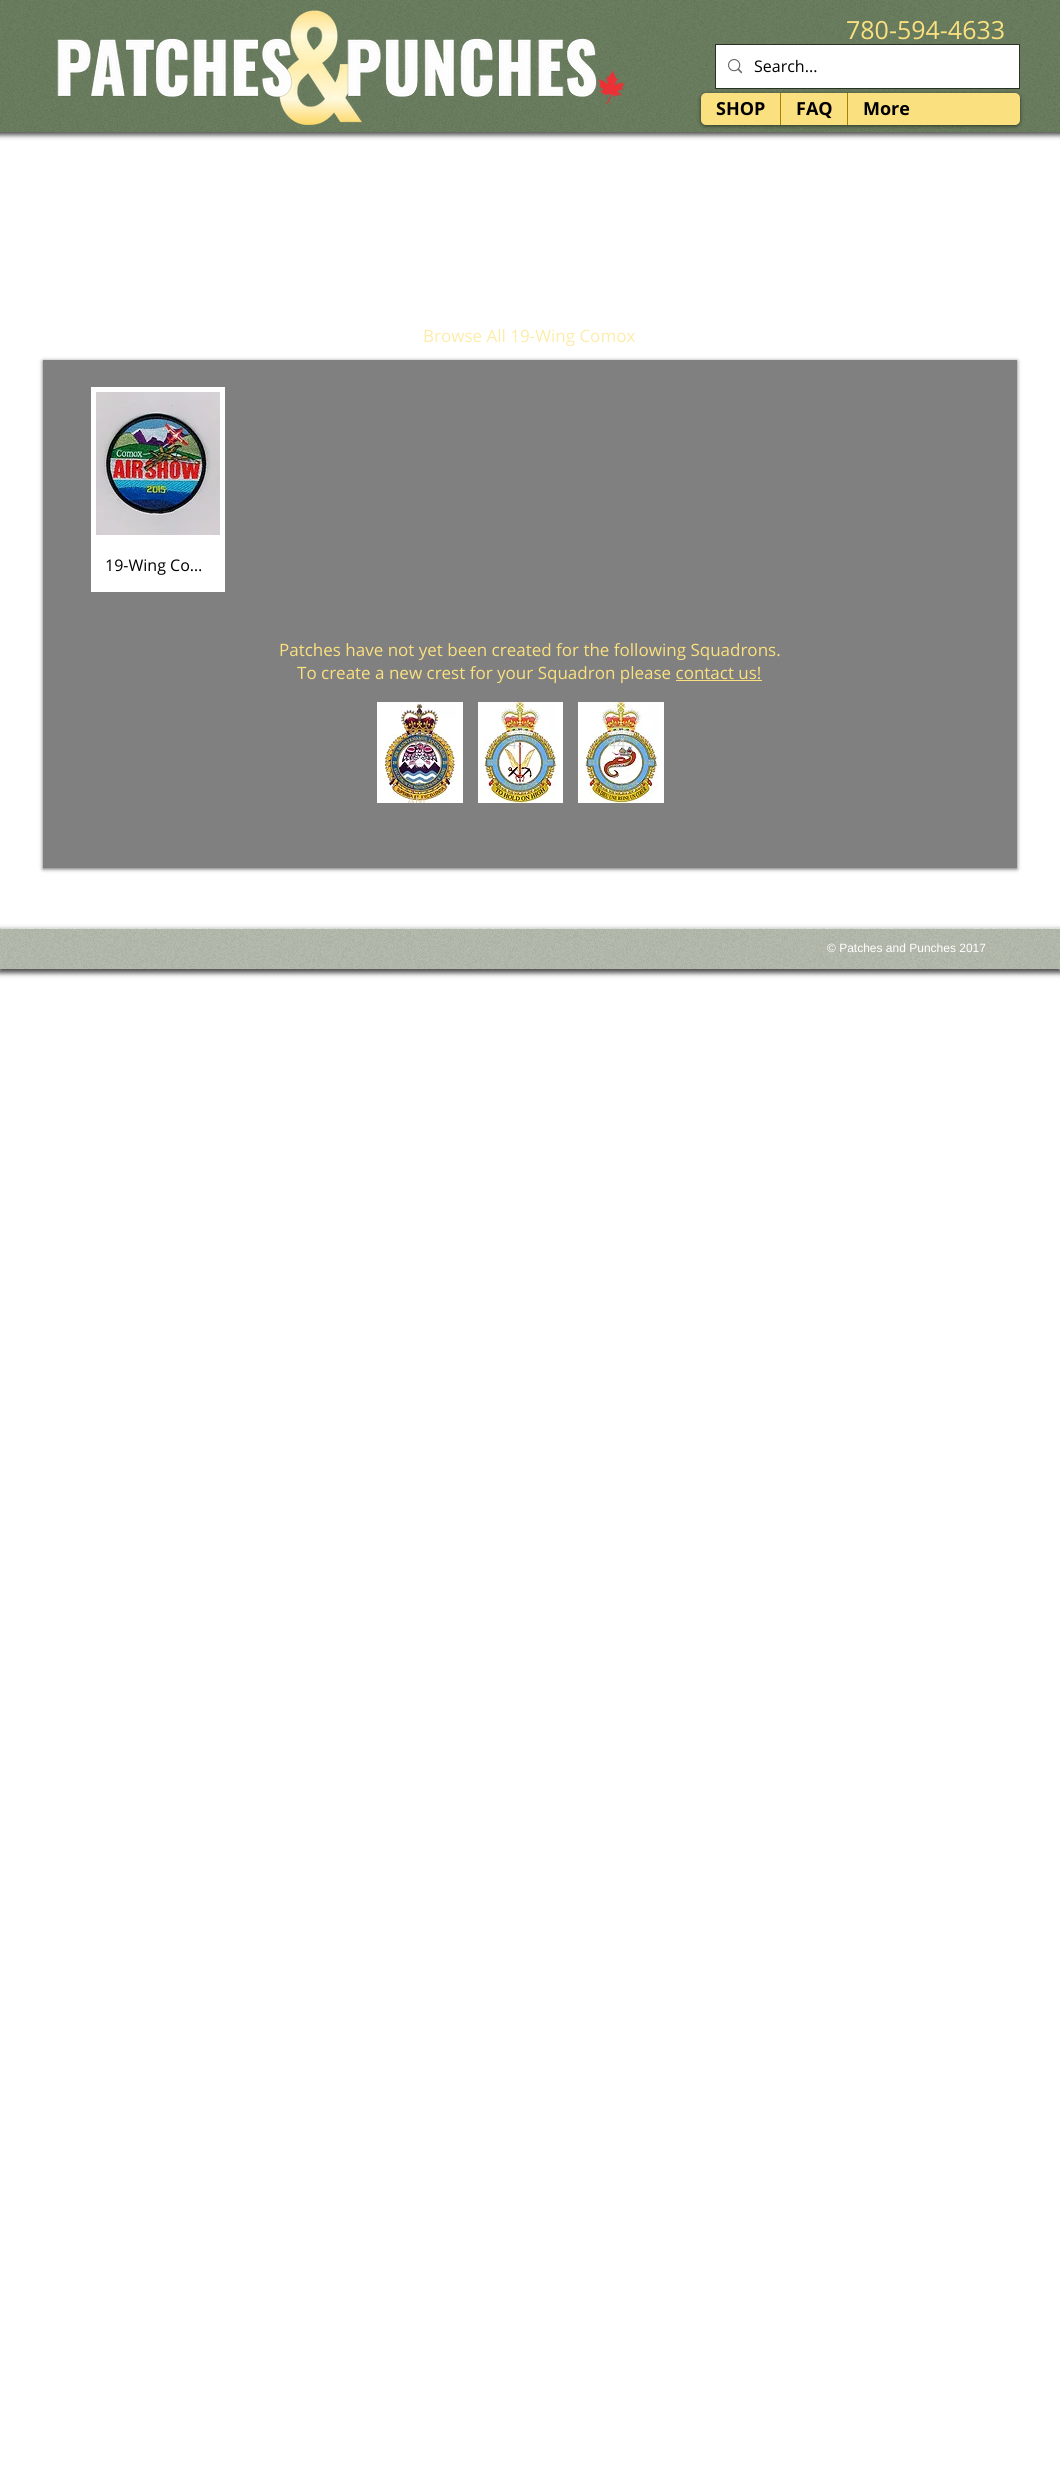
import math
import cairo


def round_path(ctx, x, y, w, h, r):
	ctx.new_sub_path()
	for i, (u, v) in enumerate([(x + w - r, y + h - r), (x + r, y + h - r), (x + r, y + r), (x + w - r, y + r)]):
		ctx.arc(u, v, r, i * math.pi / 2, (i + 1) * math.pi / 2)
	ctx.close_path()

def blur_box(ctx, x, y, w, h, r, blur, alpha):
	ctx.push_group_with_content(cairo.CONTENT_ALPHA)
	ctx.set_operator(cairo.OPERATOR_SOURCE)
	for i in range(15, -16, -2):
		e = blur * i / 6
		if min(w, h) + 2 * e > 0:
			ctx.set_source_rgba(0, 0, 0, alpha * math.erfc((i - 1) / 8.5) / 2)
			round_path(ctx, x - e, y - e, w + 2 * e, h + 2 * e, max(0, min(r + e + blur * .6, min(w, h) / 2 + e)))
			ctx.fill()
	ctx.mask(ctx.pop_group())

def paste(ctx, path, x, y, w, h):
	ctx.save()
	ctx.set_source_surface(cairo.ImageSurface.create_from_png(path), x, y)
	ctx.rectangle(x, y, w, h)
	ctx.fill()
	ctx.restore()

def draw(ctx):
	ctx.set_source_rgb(1, 1, 1)
	ctx.paint()
	ctx.set_source_rgb(0, 0, 0)
	blur_box(ctx, -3, -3, 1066, 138, 0, 2.5, 0.7)
	ctx.set_source_rgb(0.416, 0.49, 0.369)
	ctx.rectangle(0, 0, 1060, 132)
	ctx.fill()
	paste(ctx, 'media/1.png', 0, 0, 1060, 132)
	paste(ctx, 'media/2.png', 57, 10, 568, 115)
	ctx.select_font_face('Open Sans')
	ctx.set_font_size(25)
	ctx.set_source_rgb(0.984, 0.878, 0.498)
	ctx.move_to(846, 39)
	ctx.show_text('780-594-4633')
	ctx.rectangle(715.5, 44.5, 304, 44)
	ctx.set_source_rgba(0, 0, 0, 0.6)
	ctx.set_line_width(1)
	ctx.stroke()
	ctx.set_source_rgb(1, 1, 1)
	ctx.rectangle(716, 45, 303, 43)
	ctx.fill()
	paste(ctx, 'media/3.png', 728, 59, 14, 15)
	ctx.set_font_size(16)
	ctx.set_source_rgb(0, 0, 0)
	ctx.move_to(754, 72)
	ctx.show_text('Search...')
	ctx.set_source_rgb(0, 0, 0)
	blur_box(ctx, 701, 94, 319, 32, 5, 2, 0.6)
	ctx.set_source_rgb(0.984, 0.878, 0.498)
	round_path(ctx, 701, 93, 319, 32, 5)
	ctx.fill()
	ctx.select_font_face('Open Sans', cairo.FONT_SLANT_NORMAL, cairo.FONT_WEIGHT_BOLD)
	ctx.set_font_size(18)
	ctx.set_source_rgb(0, 0, 0)
	ctx.move_to(716, 115)
	ctx.show_text('SHOP')
	ctx.set_source_rgb(0.651, 0.51, 0.004)
	ctx.rectangle(780, 93, 1, 32)
	ctx.fill()
	ctx.set_source_rgb(0, 0, 0)
	ctx.move_to(796, 115)
	ctx.show_text('FAQ')
	ctx.set_source_rgb(0.651, 0.51, 0.004)
	ctx.rectangle(847, 93, 1, 32)
	ctx.fill()
	ctx.set_source_rgb(0, 0, 0)
	ctx.move_to(863, 115)
	ctx.show_text('More')
	ctx.select_font_face('Open Sans')
	ctx.set_font_size(17)
	ctx.set_source_rgb(0.992, 0.922, 0.663)
	ctx.move_to(423, 342)
	ctx.show_text('Browse All 19-Wing Comox')
	ctx.set_source_rgb(0, 0, 0)
	blur_box(ctx, 43, 361, 974, 508, 0, 2, 0.6)
	ctx.set_source_rgb(0.502, 0.502, 0.502)
	ctx.rectangle(43, 360, 974, 508)
	ctx.fill()
	ctx.set_source_rgb(1, 1, 1)
	ctx.rectangle(91, 387, 134, 205)
	ctx.fill()
	paste(ctx, 'media/4.png', 96, 392, 124, 143)
	ctx.set_font_size(16)
	ctx.set_source_rgb(0, 0, 0)
	ctx.move_to(105, 571)
	ctx.show_text('19-Wing Co…')
	ctx.set_font_size(17)
	ctx.set_source_rgb(0.984, 0.878, 0.498)
	ctx.move_to(279, 656)
	ctx.show_text('Patches have not yet been created for the following Squadrons.')
	ctx.move_to(297, 679)
	ctx.show_text('To create a new crest for your Squadron please contact us!')
	ctx.rectangle(676, 680, 86, 1)
	ctx.fill()
	paste(ctx, 'media/5.png', 377, 702, 86, 101)
	ctx.select_font_face('Raleway')
	ctx.set_font_size(16)
	ctx.set_source_rgb(0.561, 0.482, 0.502)
	ctx.move_to(412, 747)
	ctx.show_text('19')
	ctx.set_source_rgb(0.608, 0.514, 0.584)
	ctx.move_to(407, 768)
	ctx.show_text('A…')
	ctx.set_font_size(12)
	ctx.set_source_rgb(0.431, 0.475, 0.424)
	ctx.move_to(414, 790)
	ctx.show_text('19')
	ctx.save()
	ctx.rectangle(407, 779, 26, 24)
	ctx.clip()
	ctx.set_source_rgb(0.875, 0.8, 0.655)
	ctx.move_to(407, 805)
	ctx.show_text('AM')
	ctx.restore()
	paste(ctx, 'media/6.png', 478, 702, 85, 101)
	ctx.set_font_size(16)
	ctx.set_source_rgb(0.765, 0.788, 0.788)
	ctx.move_to(508, 747)
	ctx.show_text('4…')
	ctx.set_font_size(12)
	ctx.set_source_rgb(0.537, 0.627, 0.631)
	ctx.move_to(510, 790)
	ctx.show_text('407')
	paste(ctx, 'media/7.png', 578, 702, 86, 101)
	ctx.set_font_size(16)
	ctx.set_source_rgb(0.808, 0.835, 0.82)
	ctx.move_to(608, 747)
	ctx.show_text('44…')
	ctx.set_font_size(12)
	ctx.set_source_rgb(0.514, 0.624, 0.62)
	ctx.move_to(611, 790)
	ctx.show_text('442')
	ctx.set_source_rgb(0.71, 0.737, 0.682)
	ctx.rectangle(0, 929, 1060, 40)
	ctx.fill()
	ctx.set_source_rgb(0.882, 0.894, 0.871)
	ctx.rectangle(0, 928, 1060, 1)
	ctx.fill()
	ctx.save()
	ctx.set_fill_rule(cairo.FILL_RULE_EVEN_ODD)
	ctx.new_path()
	ctx.move_to(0, 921)
	ctx.line_to(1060, 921)
	ctx.line_to(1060, 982)
	ctx.line_to(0, 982)
	ctx.close_path()
	ctx.move_to(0, 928)
	ctx.line_to(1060, 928)
	ctx.line_to(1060, 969)
	ctx.line_to(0, 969)
	ctx.close_path()
	ctx.clip()
	ctx.set_source_rgb(0, 0, 0)
	blur_box(ctx, -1, 930, 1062, 43, 0, 2.5, 0.7)
	ctx.restore()
	paste(ctx, 'media/8.png', 0, 928, 1060, 41)
	ctx.select_font_face('Liberation Sans')
	ctx.set_source_rgb(1, 1, 1)
	ctx.move_to(827, 952)
	ctx.show_text('© Patches and Punches 2017')


surface = cairo.ImageSurface(cairo.FORMAT_RGB24, 1060, 2473)
ctx = cairo.Context(surface)
options = cairo.FontOptions()
options.set_hint_metrics(cairo.HINT_METRICS_OFF)
options.set_hint_style(cairo.HINT_STYLE_NONE)
ctx.set_font_options(options)
ctx.set_miter_limit(4)
draw(ctx)
surface.write_to_png('image.png')
